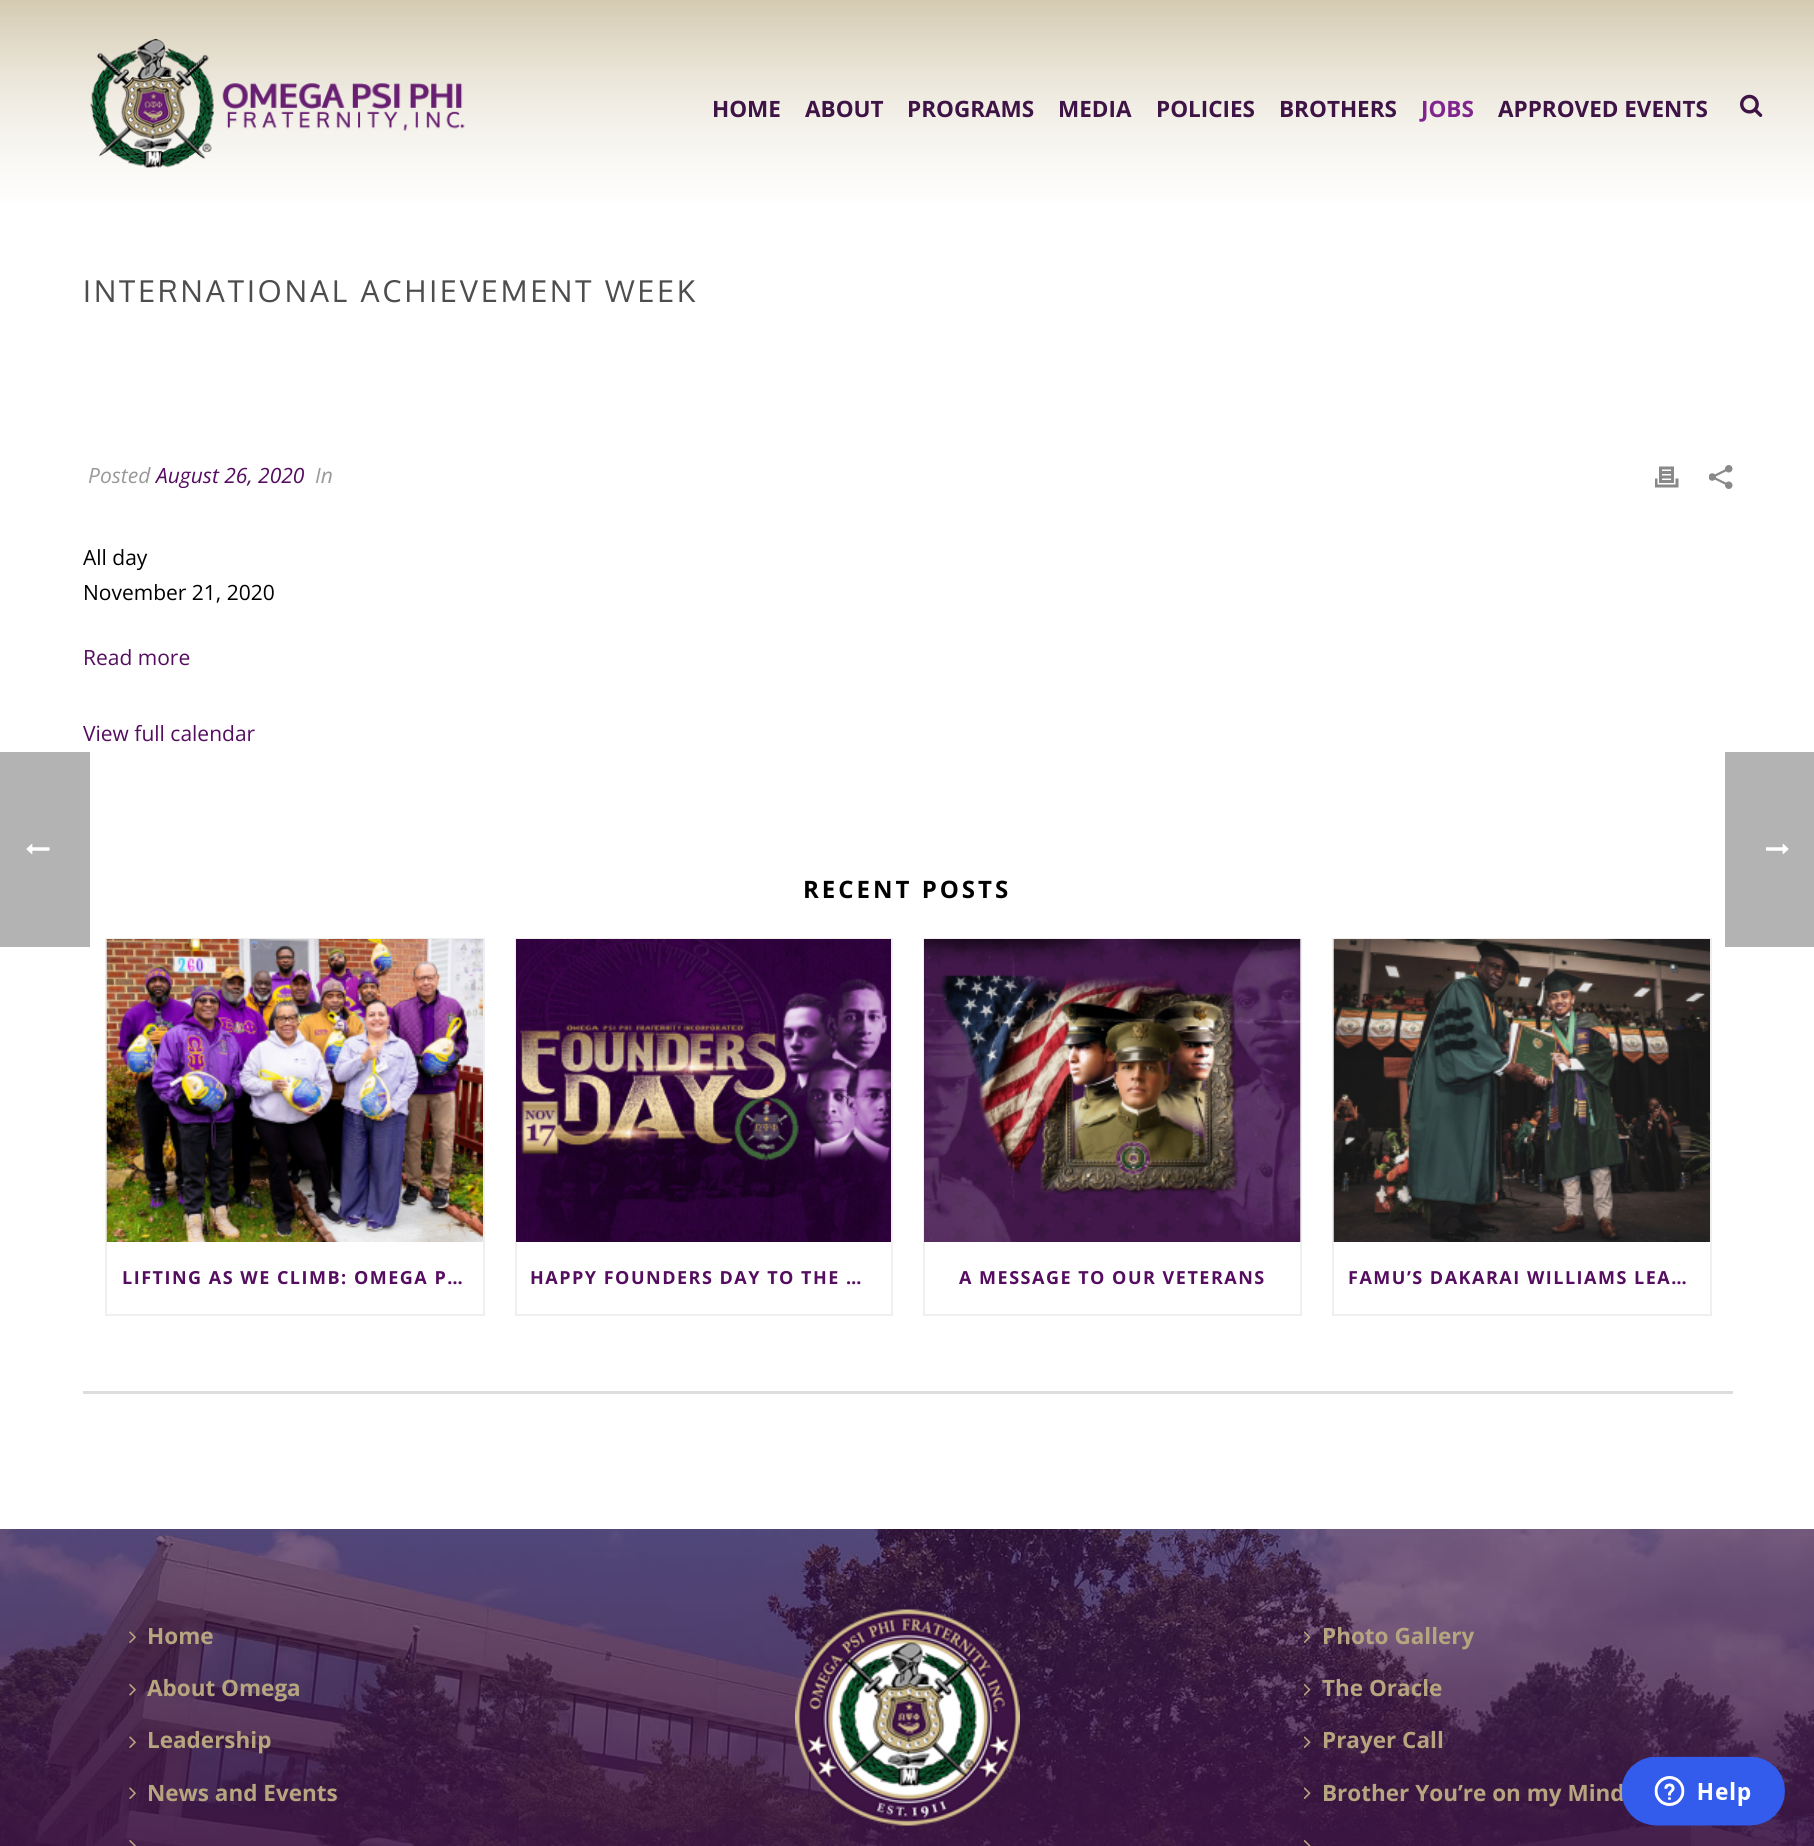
import math
import cairo


def write_spaced(ctx, x, y, s, letter, word):
	ctx.move_to(x, y)
	for ch in s:
		ctx.show_text(ch)
		ctx.rel_move_to(letter + word * (ch == ' '), 0)

def paste(ctx, path, x, y, w, h):
	ctx.save()
	ctx.set_source_surface(cairo.ImageSurface.create_from_png(path), x, y)
	ctx.rectangle(x, y, w, h)
	ctx.fill()
	ctx.restore()

def draw(ctx):
	ctx.set_source_rgb(1, 1, 1)
	ctx.paint()
	ctx.set_source_rgb(0.702, 0.702, 0.702)
	ctx.rectangle(0, 752, 90, 195)
	ctx.fill()
	paste(ctx, 'media/1.png', 26, 844, 24, 10)
	paste(ctx, 'media/2.png', 0, 0, 1814, 201)
	paste(ctx, 'media/3.png', 90, 39, 375, 129)
	ctx.select_font_face('Open Sans', cairo.FONT_SLANT_NORMAL, cairo.FONT_WEIGHT_BOLD)
	ctx.set_font_size(22.5)
	ctx.set_source_rgb(0.243, 0.078, 0.271)
	for x, y, s in [
		(712, 117, 'HOME'),
		(805, 117, 'ABOUT'),
		(907, 117, 'PROGRAMS'),
		(1058, 117, 'MEDIA'),
		(1156, 117, 'POLICIES'),
		(1279, 117, 'BROTHERS'),
	]:
		ctx.move_to(x, y)
		ctx.show_text(s)
	ctx.set_source_rgb(0.502, 0.141, 0.557)
	ctx.move_to(1421, 117)
	ctx.show_text('JOBS')
	ctx.set_source_rgb(0.243, 0.078, 0.271)
	ctx.move_to(1498, 117)
	ctx.show_text('APPROVED EVENTS')
	paste(ctx, 'media/4.png', 1740, 94, 23, 23)
	ctx.select_font_face('Oxygen')
	ctx.set_font_size(30)
	ctx.set_source_rgb(0.302, 0.302, 0.302)
	write_spaced(ctx, 83, 302, 'INTERNATIONAL ACHIEVEMENT WEEK', 3, 0)
	ctx.select_font_face('Open Sans', cairo.FONT_SLANT_ITALIC)
	ctx.set_font_size(21)
	ctx.set_source_rgb(0.6, 0.6, 0.6)
	ctx.move_to(88, 483)
	ctx.show_text('Posted')
	ctx.set_source_rgb(0.329, 0.051, 0.373)
	ctx.move_to(156, 483)
	ctx.show_text('August 26, 2020')
	ctx.set_source_rgb(0.6, 0.6, 0.6)
	ctx.move_to(315, 483)
	ctx.show_text('In')
	paste(ctx, 'media/5.png', 1655, 466, 24, 22)
	paste(ctx, 'media/6.png', 1709, 465, 24, 24)
	ctx.select_font_face('Open Sans')
	ctx.set_source_rgb(0, 0, 0)
	ctx.move_to(83, 565)
	ctx.show_text('All day')
	ctx.move_to(83, 600)
	ctx.show_text('November 21, 2020')
	ctx.set_source_rgb(0.329, 0.051, 0.373)
	ctx.move_to(83, 665)
	ctx.show_text('Read more')
	ctx.move_to(83, 741)
	ctx.show_text('View full calendar')
	ctx.set_source_rgb(0.867, 0.867, 0.867)
	ctx.rectangle(83, 1391, 1650, 3)
	ctx.fill()
	ctx.select_font_face('Open Sans', cairo.FONT_SLANT_NORMAL, cairo.FONT_WEIGHT_BOLD)
	ctx.set_font_size(24)
	ctx.set_source_rgb(0, 0, 0)
	write_spaced(ctx, 803, 898, 'RECENT POSTS', 3, 0)
	ctx.rectangle(106, 939, 378, 376)
	ctx.set_source_rgb(0.937, 0.937, 0.937)
	ctx.stroke()
	paste(ctx, 'media/7.png', 106, 939, 377, 303)
	ctx.set_font_size(18)
	ctx.set_source_rgb(0.329, 0.051, 0.373)
	write_spaced(ctx, 122, 1284, 'LIFTING AS WE CLIMB: OMEGA P…', 1.5, 0)
	ctx.rectangle(516, 939, 376, 376)
	ctx.set_source_rgb(0.937, 0.937, 0.937)
	ctx.stroke()
	paste(ctx, 'media/8.png', 516, 939, 375, 303)
	ctx.set_source_rgb(0.329, 0.051, 0.373)
	write_spaced(ctx, 530, 1284, 'HAPPY FOUNDERS DAY TO THE …', 1.5, 0)
	ctx.rectangle(924, 939, 377, 376)
	ctx.set_source_rgb(0.937, 0.937, 0.937)
	ctx.stroke()
	paste(ctx, 'media/9.png', 924, 939, 377, 303)
	ctx.set_source_rgb(0.329, 0.051, 0.373)
	write_spaced(ctx, 959, 1284, 'A MESSAGE TO OUR VETERANS', 1.5, 0)
	ctx.rectangle(1333, 939, 378, 376)
	ctx.set_source_rgb(0.937, 0.937, 0.937)
	ctx.stroke()
	paste(ctx, 'media/10.png', 1333, 939, 377, 303)
	ctx.set_source_rgb(0.329, 0.051, 0.373)
	write_spaced(ctx, 1348, 1284, 'FAMU’S DAKARAI WILLIAMS LEA…', 1.5, 0)
	paste(ctx, 'media/11.png', 0, 1529, 1814, 317)
	paste(ctx, 'media/12.png', 129, 1631, 7, 12)
	ctx.set_font_size(22.5)
	ctx.set_source_rgb(0.718, 0.647, 0.498)
	ctx.move_to(147, 1644)
	ctx.show_text('Home')
	paste(ctx, 'media/13.png', 129, 1684, 7, 12)
	ctx.move_to(147, 1696)
	ctx.show_text('About Omega')
	paste(ctx, 'media/14.png', 129, 1736, 7, 12)
	ctx.move_to(147, 1748)
	ctx.show_text('Leadership')
	paste(ctx, 'media/15.png', 129, 1787, 7, 12)
	ctx.move_to(147, 1801)
	ctx.show_text('News and Events')
	paste(ctx, 'media/16.png', 129, 1840, 7, 6)
	paste(ctx, 'media/17.png', 795, 1609, 225, 217)
	paste(ctx, 'media/18.png', 1304, 1631, 7, 12)
	ctx.move_to(1322, 1644)
	ctx.show_text('Photo Gallery')
	paste(ctx, 'media/19.png', 1304, 1684, 7, 12)
	ctx.move_to(1322, 1696)
	ctx.show_text('The Oracle')
	paste(ctx, 'media/20.png', 1304, 1736, 7, 12)
	ctx.move_to(1322, 1748)
	ctx.show_text('Prayer Call')
	paste(ctx, 'media/21.png', 1304, 1787, 7, 12)
	ctx.move_to(1322, 1801)
	ctx.show_text('Brother You’re on my Mind')
	paste(ctx, 'media/22.png', 1304, 1840, 7, 6)
	ctx.set_source_rgb(0.702, 0.702, 0.702)
	ctx.rectangle(1725, 752, 89, 195)
	ctx.fill()
	paste(ctx, 'media/23.png', 1766, 844, 23, 10)
	paste(ctx, 'media/24.png', 1621, 1756, 164, 70)


surface = cairo.ImageSurface(cairo.FORMAT_RGB24, 1814, 1846)
ctx = cairo.Context(surface)
options = cairo.FontOptions()
options.set_hint_metrics(cairo.HINT_METRICS_OFF)
options.set_hint_style(cairo.HINT_STYLE_NONE)
ctx.set_font_options(options)
ctx.set_miter_limit(4)
draw(ctx)
surface.write_to_png('image.png')
